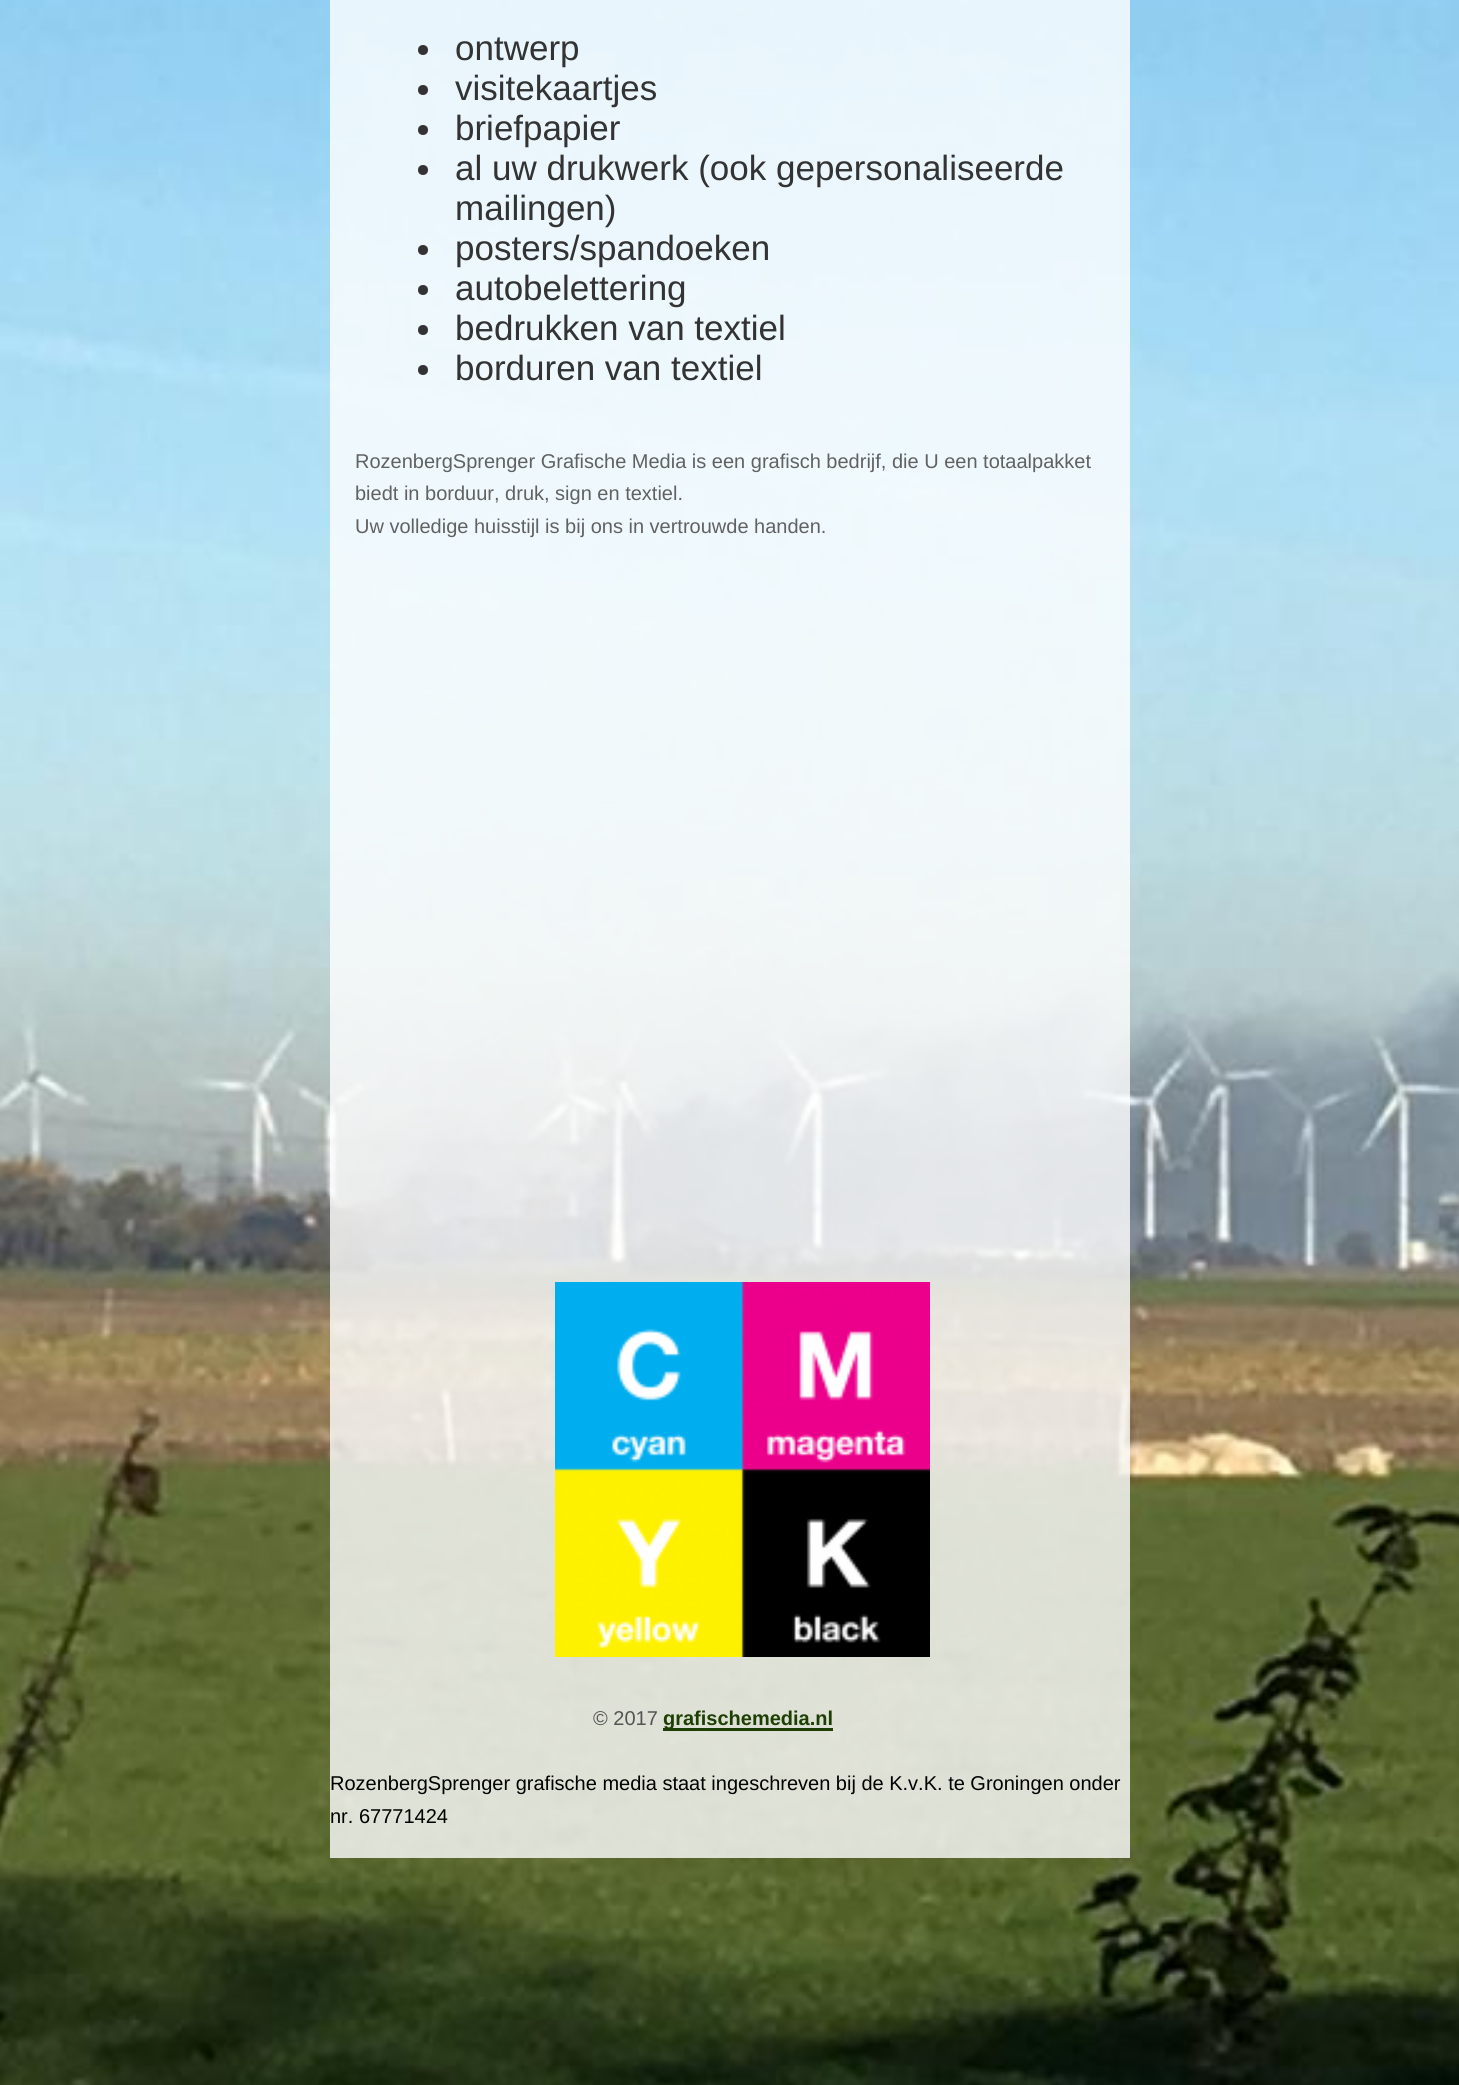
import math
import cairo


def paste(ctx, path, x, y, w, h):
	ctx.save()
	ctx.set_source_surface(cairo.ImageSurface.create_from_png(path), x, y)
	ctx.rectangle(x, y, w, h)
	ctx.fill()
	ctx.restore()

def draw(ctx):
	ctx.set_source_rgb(1, 1, 1)
	ctx.paint()
	paste(ctx, 'media/1.png', 0, 0, 1459, 2085)
	ctx.set_source_rgba(1, 1, 1, 0.8)
	ctx.rectangle(330, 0, 800, 1858)
	ctx.fill()
	ctx.set_source_rgb(0.2, 0.2, 0.2)
	ctx.arc(423, 50, 5, 0, 2 * math.pi)
	ctx.fill()
	ctx.select_font_face('Liberation Sans')
	ctx.set_font_size(35)
	ctx.move_to(455, 60)
	ctx.show_text('ontwerp')
	ctx.new_path()
	ctx.arc(423, 90, 5, 0, 2 * math.pi)
	ctx.fill()
	ctx.move_to(455, 100)
	ctx.show_text('visitekaartjes')
	ctx.new_path()
	ctx.arc(423, 130, 5, 0, 2 * math.pi)
	ctx.fill()
	ctx.move_to(455, 140)
	ctx.show_text('briefpapier')
	ctx.new_path()
	ctx.arc(423, 170, 5, 0, 2 * math.pi)
	ctx.fill()
	ctx.move_to(455, 180)
	ctx.show_text('al uw drukwerk (ook gepersonaliseerde')
	ctx.move_to(455, 220)
	ctx.show_text('mailingen)')
	ctx.new_path()
	ctx.arc(423, 250, 5, 0, 2 * math.pi)
	ctx.fill()
	ctx.move_to(455, 260)
	ctx.show_text('posters/spandoeken')
	ctx.new_path()
	ctx.arc(423, 290, 5, 0, 2 * math.pi)
	ctx.fill()
	ctx.move_to(455, 300)
	ctx.show_text('autobelettering')
	ctx.new_path()
	ctx.arc(423, 330, 5, 0, 2 * math.pi)
	ctx.fill()
	ctx.move_to(455, 340)
	ctx.show_text('bedrukken van textiel')
	ctx.new_path()
	ctx.arc(423, 370, 5, 0, 2 * math.pi)
	ctx.fill()
	ctx.move_to(455, 380)
	ctx.show_text('borduren van textiel')
	ctx.set_font_size(20)
	ctx.set_source_rgb(0.38, 0.38, 0.38)
	for x, y, s in [
		(355, 468, 'RozenbergSprenger Grafische Media is een grafisch bedrijf, die U een totaalpakket'),
		(355, 500, 'biedt in borduur, druk, sign en textiel.'),
		(355, 533, 'Uw volledige huisstijl is bij ons in vertrouwde handen.'),
	]:
		ctx.move_to(x, y)
		ctx.show_text(s)
	paste(ctx, 'media/2.png', 555, 1282, 375, 375)
	ctx.set_source_rgb(0.329, 0.329, 0.329)
	ctx.move_to(593, 1725)
	ctx.show_text('© 2017')
	ctx.set_source_rgb(0.114, 0.247, 0.012)
	ctx.rectangle(663, 1728, 170, 3)
	ctx.fill()
	ctx.select_font_face('Liberation Sans', cairo.FONT_SLANT_NORMAL, cairo.FONT_WEIGHT_BOLD)
	ctx.move_to(663, 1725)
	ctx.show_text('grafischemedia.nl')
	ctx.select_font_face('Liberation Sans')
	ctx.set_source_rgb(0, 0, 0)
	ctx.move_to(330, 1790)
	ctx.show_text('RozenbergSprenger grafische media staat ingeschreven bij de K.v.K. te Groningen onder')
	ctx.move_to(330, 1823)
	ctx.show_text('nr. 67771424')


surface = cairo.ImageSurface(cairo.FORMAT_RGB24, 1459, 2085)
ctx = cairo.Context(surface)
options = cairo.FontOptions()
options.set_hint_metrics(cairo.HINT_METRICS_OFF)
options.set_hint_style(cairo.HINT_STYLE_NONE)
ctx.set_font_options(options)
ctx.set_miter_limit(4)
draw(ctx)
surface.write_to_png('image.png')
